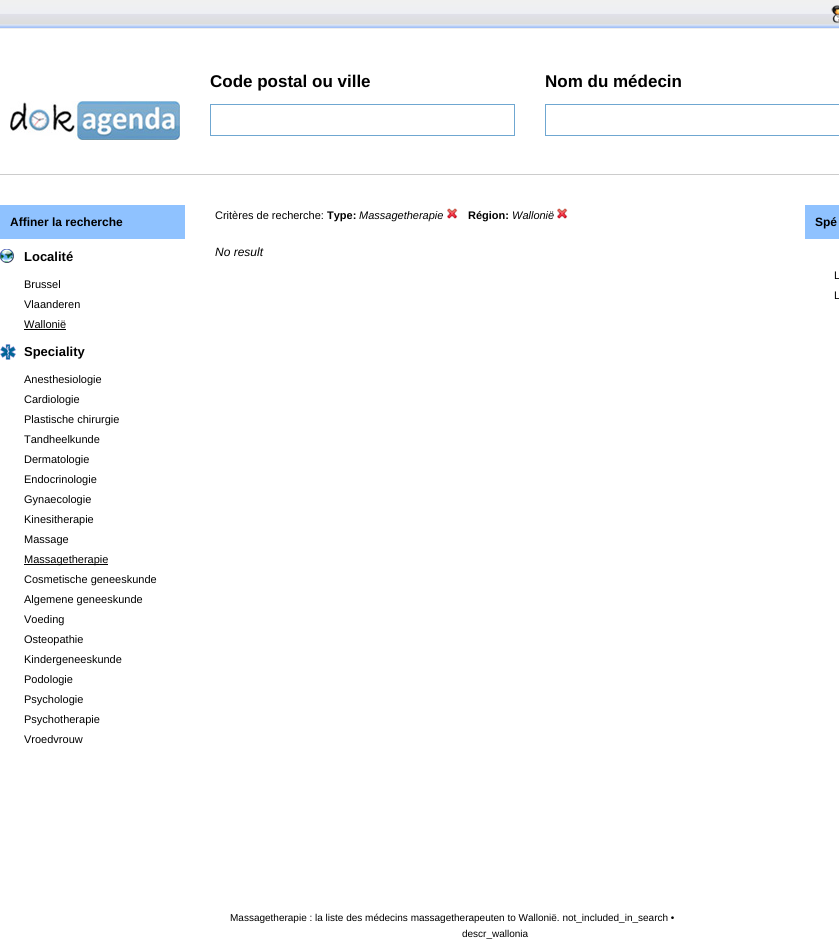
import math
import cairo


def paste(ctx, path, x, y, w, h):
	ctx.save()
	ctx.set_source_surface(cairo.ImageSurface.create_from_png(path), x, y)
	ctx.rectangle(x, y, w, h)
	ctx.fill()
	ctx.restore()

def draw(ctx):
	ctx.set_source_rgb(1, 1, 1)
	ctx.paint()
	ctx.set_source_rgb(0.8, 0.8, 0.8)
	ctx.rectangle(0, 174, 839, 1)
	ctx.fill()
	paste(ctx, 'media/1.png', 0, 0, 839, 28)
	ctx.set_source_rgb(0.933, 0.933, 0.933)
	ctx.rectangle(0, 28, 839, 1)
	ctx.fill()
	paste(ctx, 'media/2.png', 831, 5, 8, 18)
	ctx.select_font_face('Liberation Sans', cairo.FONT_SLANT_NORMAL, cairo.FONT_WEIGHT_BOLD)
	ctx.set_font_size(17)
	ctx.set_source_rgb(0, 0, 0)
	ctx.move_to(210, 87)
	ctx.show_text('Code postal ou ville')
	ctx.rectangle(210.5, 104.5, 304, 31)
	ctx.set_source_rgb(0.435, 0.655, 0.82)
	ctx.set_line_width(1)
	ctx.stroke()
	ctx.set_source_rgb(0, 0, 0)
	ctx.move_to(545, 87)
	ctx.show_text('Nom du médecin')
	ctx.rectangle(545.5, 104.5, 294, 31)
	ctx.set_source_rgb(0.435, 0.655, 0.82)
	ctx.stroke()
	paste(ctx, 'media/3.png', 10, 101, 170, 39)
	ctx.set_source_rgb(0.561, 0.761, 1)
	ctx.rectangle(0, 205, 185, 34)
	ctx.fill()
	ctx.set_font_size(12)
	ctx.set_source_rgb(0, 0, 0)
	ctx.move_to(10, 226)
	ctx.show_text('Affiner la recherche')
	paste(ctx, 'media/4.png', 0, 249, 14, 14)
	ctx.set_font_size(13)
	ctx.move_to(24, 261)
	ctx.show_text('Localité')
	ctx.select_font_face('Liberation Sans')
	ctx.set_font_size(11)
	for x, y, s in [
		(24, 288, 'Brussel'),
		(24, 308, 'Vlaanderen'),
		(24, 328, 'Wallonië'),
	]:
		ctx.move_to(x, y)
		ctx.show_text(s)
	ctx.rectangle(24, 329, 42, 1)
	ctx.fill()
	paste(ctx, 'media/5.png', 0, 344, 16, 16)
	ctx.select_font_face('Liberation Sans', cairo.FONT_SLANT_NORMAL, cairo.FONT_WEIGHT_BOLD)
	ctx.set_font_size(13)
	ctx.move_to(24, 356)
	ctx.show_text('Speciality')
	ctx.select_font_face('Liberation Sans')
	ctx.set_font_size(11)
	for x, y, s in [
		(24, 383, 'Anesthesiologie'),
		(24, 403, 'Cardiologie'),
		(24, 423, 'Plastische chirurgie'),
		(24, 443, 'Tandheelkunde'),
		(24, 463, 'Dermatologie'),
		(24, 483, 'Endocrinologie'),
		(24, 503, 'Gynaecologie'),
		(24, 523, 'Kinesitherapie'),
		(24, 543, 'Massage'),
	]:
		ctx.move_to(x, y)
		ctx.show_text(s)
	ctx.rectangle(24, 564, 84, 1)
	ctx.fill()
	for x, y, s in [
		(24, 563, 'Massagetherapie'),
		(24, 583, 'Cosmetische geneeskunde'),
		(24, 603, 'Algemene geneeskunde'),
		(24, 623, 'Voeding'),
		(24, 643, 'Osteopathie'),
		(24, 663, 'Kindergeneeskunde'),
		(24, 683, 'Podologie'),
		(24, 703, 'Psychologie'),
		(24, 723, 'Psychotherapie'),
		(24, 743, 'Vroedvrouw'),
		(215, 219, 'Critères de recherche:'),
	]:
		ctx.move_to(x, y)
		ctx.show_text(s)
	ctx.select_font_face('Liberation Sans', cairo.FONT_SLANT_NORMAL, cairo.FONT_WEIGHT_BOLD)
	ctx.move_to(327, 219)
	ctx.show_text('Type:')
	ctx.select_font_face('Liberation Sans', cairo.FONT_SLANT_ITALIC)
	ctx.move_to(359, 219)
	ctx.show_text('Massagetherapie')
	paste(ctx, 'media/6.png', 447, 208, 11, 11)
	ctx.select_font_face('Liberation Sans', cairo.FONT_SLANT_NORMAL, cairo.FONT_WEIGHT_BOLD)
	ctx.move_to(468, 219)
	ctx.show_text('Région:')
	ctx.select_font_face('Liberation Sans', cairo.FONT_SLANT_ITALIC)
	ctx.move_to(512, 219)
	ctx.show_text('Wallonië')
	paste(ctx, 'media/6.png', 557, 208, 11, 11)
	ctx.set_font_size(12)
	ctx.move_to(215, 256)
	ctx.show_text('No result')
	ctx.set_source_rgb(0.561, 0.761, 1)
	ctx.rectangle(805, 205, 34, 34)
	ctx.fill()
	ctx.select_font_face('Liberation Sans', cairo.FONT_SLANT_NORMAL, cairo.FONT_WEIGHT_BOLD)
	ctx.set_source_rgb(0, 0, 0)
	ctx.move_to(815, 226)
	ctx.show_text('Spé')
	ctx.select_font_face('Liberation Sans')
	ctx.set_font_size(11)
	ctx.move_to(834, 279)
	ctx.show_text('L')
	ctx.move_to(834, 299)
	ctx.show_text('L')
	ctx.set_font_size(10)
	ctx.move_to(230, 921)
	ctx.show_text('Massagetherapie : la liste des médecins massagetherapeuten to Wallonië. not_included_in_search •')
	ctx.move_to(462, 937)
	ctx.show_text('descr_wallonia')


surface = cairo.ImageSurface(cairo.FORMAT_RGB24, 839, 945)
ctx = cairo.Context(surface)
options = cairo.FontOptions()
options.set_hint_metrics(cairo.HINT_METRICS_OFF)
options.set_hint_style(cairo.HINT_STYLE_NONE)
ctx.set_font_options(options)
ctx.set_miter_limit(4)
draw(ctx)
surface.write_to_png('image.png')
